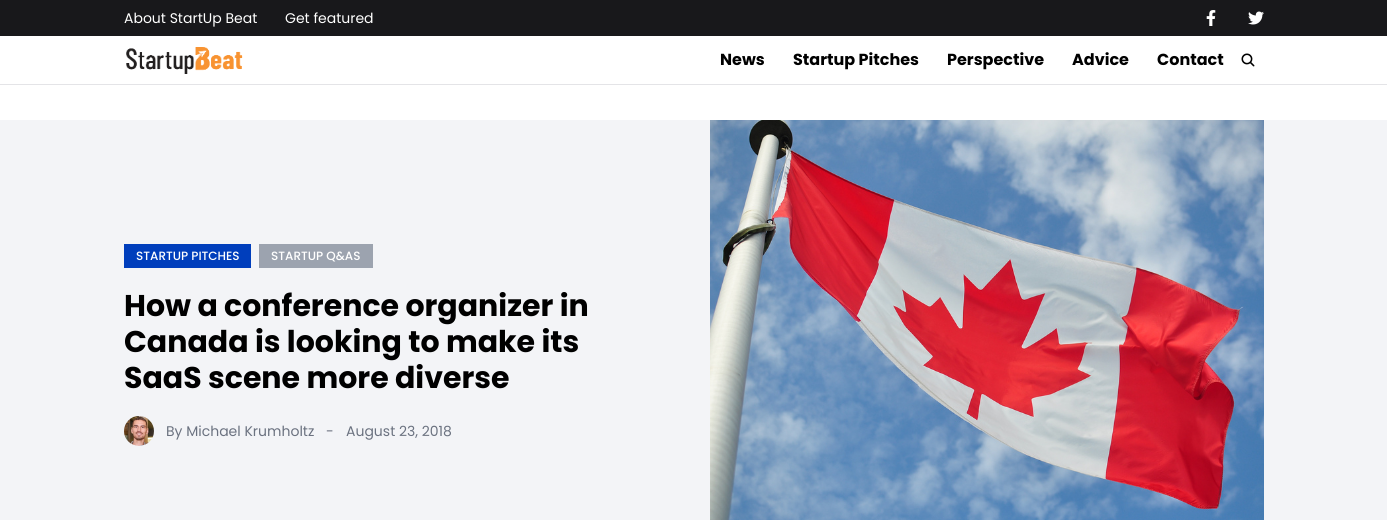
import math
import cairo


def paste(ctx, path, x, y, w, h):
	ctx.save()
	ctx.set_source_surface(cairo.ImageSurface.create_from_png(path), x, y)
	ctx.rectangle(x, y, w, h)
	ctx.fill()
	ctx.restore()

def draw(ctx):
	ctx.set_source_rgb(1, 1, 1)
	ctx.paint()
	ctx.set_source_rgb(0.094, 0.094, 0.106)
	ctx.rectangle(0, 0, 1387, 36)
	ctx.fill()
	ctx.select_font_face('Poppins')
	ctx.set_font_size(14)
	ctx.set_source_rgb(1, 1, 1)
	ctx.move_to(124, 23)
	ctx.show_text('About StartUp Beat')
	ctx.move_to(285, 23)
	ctx.show_text('Get featured')
	paste(ctx, 'media/1.png', 1206, 10, 10, 16)
	paste(ctx, 'media/2.png', 1248, 11, 16, 14)
	ctx.set_source_rgb(0.894, 0.894, 0.906)
	ctx.rectangle(0, 84, 1387, 1)
	ctx.fill()
	paste(ctx, 'media/3.png', 126, 47, 117, 27)
	ctx.select_font_face('Poppins', cairo.FONT_SLANT_NORMAL, cairo.FONT_WEIGHT_BOLD)
	ctx.set_font_size(16)
	ctx.set_source_rgb(0, 0, 0)
	for x, y, s in [
		(720, 65, 'News'),
		(793, 65, 'Startup Pitches'),
		(947, 65, 'Perspective'),
		(1072, 65, 'Advice'),
		(1157, 65, 'Contact'),
	]:
		ctx.move_to(x, y)
		ctx.show_text(s)
	paste(ctx, 'media/4.png', 1241, 53, 14, 14)
	ctx.set_source_rgb(0.953, 0.957, 0.965)
	ctx.rectangle(0, 120, 1387, 400)
	ctx.fill()
	ctx.set_source_rgb(0, 0.243, 0.737)
	ctx.rectangle(124, 244, 127, 24)
	ctx.fill()
	ctx.select_font_face('Poppins Medium')
	ctx.set_font_size(12)
	ctx.set_source_rgb(1, 1, 1)
	ctx.move_to(136, 260)
	ctx.show_text('STARTUP PITCHES')
	ctx.set_source_rgb(0.612, 0.639, 0.686)
	ctx.rectangle(259, 244, 114, 24)
	ctx.fill()
	ctx.set_source_rgb(1, 1, 1)
	ctx.move_to(271, 260)
	ctx.show_text('STARTUP Q&AS')
	ctx.select_font_face('Poppins', cairo.FONT_SLANT_NORMAL, cairo.FONT_WEIGHT_BOLD)
	ctx.set_font_size(30)
	ctx.set_source_rgb(0, 0, 0)
	for x, y, s in [
		(124, 316, 'How a conference organizer in'),
		(124, 352, 'Canada is looking to make its'),
		(124, 388, 'SaaS scene more diverse'),
	]:
		ctx.move_to(x, y)
		ctx.show_text(s)
	paste(ctx, 'media/5.png', 124, 416, 30, 30)
	ctx.select_font_face('Poppins')
	ctx.set_font_size(14)
	ctx.set_source_rgb(0.42, 0.447, 0.502)
	for x, y, s in [
		(166, 436, 'By Michael Krumholtz'),
		(326, 436, '-'),
		(346, 436, 'August 23, 2018'),
	]:
		ctx.move_to(x, y)
		ctx.show_text(s)
	paste(ctx, 'media/6.png', 710, 120, 554, 400)


surface = cairo.ImageSurface(cairo.FORMAT_RGB24, 1387, 520)
ctx = cairo.Context(surface)
options = cairo.FontOptions()
options.set_hint_metrics(cairo.HINT_METRICS_OFF)
options.set_hint_style(cairo.HINT_STYLE_NONE)
ctx.set_font_options(options)
ctx.set_miter_limit(4)
draw(ctx)
surface.write_to_png('image.png')
